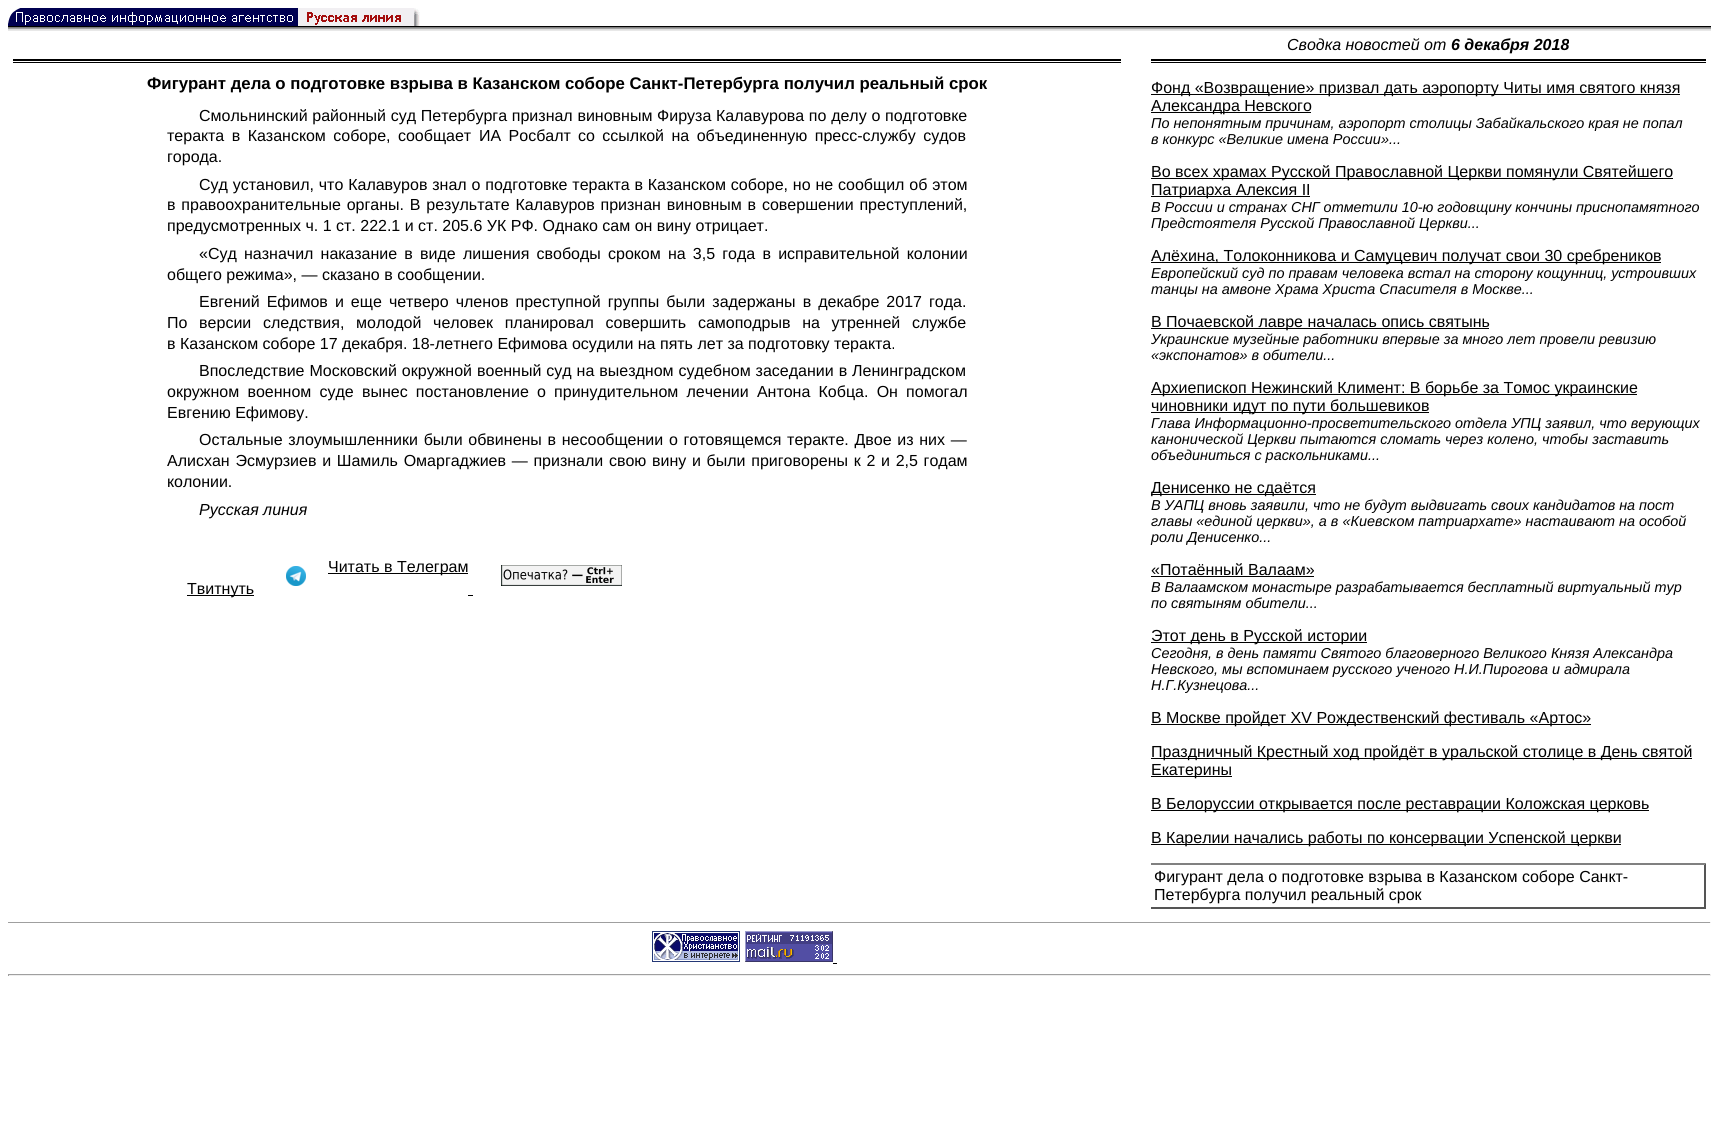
import math
import cairo


def write_spaced(ctx, x, y, s, letter, word):
	ctx.move_to(x, y)
	for ch in s:
		ctx.show_text(ch)
		ctx.rel_move_to(letter + word * (ch == ' '), 0)

def paste(ctx, path, x, y, w, h):
	ctx.save()
	ctx.set_source_surface(cairo.ImageSurface.create_from_png(path), x, y)
	ctx.rectangle(x, y, w, h)
	ctx.fill()
	ctx.restore()

def draw(ctx):
	ctx.set_source_rgb(1, 1, 1)
	ctx.paint()
	paste(ctx, 'media/1.png', 8, 8, 412, 18)
	ctx.set_source_rgb(0, 0, 0)
	ctx.rectangle(8, 26, 1703, 1)
	ctx.fill()
	ctx.set_source_rgb(0.502, 0.502, 0.502)
	ctx.rectangle(8, 27, 1703, 1)
	ctx.fill()
	ctx.set_source_rgb(0.635, 0.635, 0.635)
	ctx.rectangle(8, 28, 1703, 1)
	ctx.fill()
	ctx.set_source_rgb(0.867, 0.867, 0.867)
	ctx.rectangle(8, 29, 1703, 1)
	ctx.fill()
	ctx.set_source_rgb(0.91, 0.91, 0.91)
	ctx.rectangle(8, 30, 1703, 1)
	ctx.fill()
	ctx.select_font_face('Liberation Sans', cairo.FONT_SLANT_ITALIC)
	ctx.set_font_size(16)
	ctx.set_source_rgb(0, 0, 0)
	ctx.move_to(1287, 50)
	ctx.show_text('Сводка новостей от')
	ctx.select_font_face('Liberation Sans', cairo.FONT_SLANT_ITALIC, cairo.FONT_WEIGHT_BOLD)
	ctx.move_to(1451, 50)
	ctx.show_text('6 декабря 2018')
	ctx.rectangle(13, 59, 1108, 2)
	ctx.fill()
	ctx.rectangle(13, 62, 1108, 1)
	ctx.fill()
	ctx.select_font_face('Liberation Sans', cairo.FONT_SLANT_NORMAL, cairo.FONT_WEIGHT_BOLD)
	ctx.set_font_size(16.8)
	ctx.move_to(147, 89)
	ctx.show_text('Фигурант дела о подготовке взрыва в Казанском соборе Санкт-Петербурга получил реальный срок')
	ctx.select_font_face('Liberation Sans')
	ctx.set_font_size(16)
	write_spaced(ctx, 199, 121, 'Смольнинский районный суд Петербурга признал виновным Фируза Калавурова по делу о подготовке', 0, 0.25)
	for x, y, s in [
		(167, 141, 'теракта в Казанском соборе, сообщает'),
		(479, 141, 'ИА Росбалт'),
		(578, 141, 'со ссылкой на объединенную пресс-службу судов'),
	]:
		write_spaced(ctx, x, y, s, 0, 3)
	ctx.move_to(167, 162)
	ctx.show_text('города.')
	write_spaced(ctx, 199, 190, 'Суд установил, что Калавуров знал о подготовке теракта в Казанском соборе, но не сообщил об этом', 0, 0.4)
	write_spaced(ctx, 167, 210, 'в правоохранительные органы. В результате Калавуров признан виновным в совершении преступлений,', 0, 1.4)
	ctx.move_to(167, 231)
	ctx.show_text('предусмотренных ч. 1 ст. 222.1 и ст. 205.6 УК РФ. Однако сам он вину отрицает.')
	write_spaced(ctx, 199, 259, '«Суд назначил наказание в виде лишения свободы сроком на 3,5 года в исправительной колонии', 0, 2.75)
	ctx.move_to(167, 280)
	ctx.show_text('общего режима», — сказано в сообщении.')
	write_spaced(ctx, 199, 307, 'Евгений Ефимов и еще четверо членов преступной группы были задержаны в декабре 2017 года.', 0, 2.6)
	write_spaced(ctx, 167, 328, 'По версии следствия, молодой человек планировал совершить самоподрыв на утренней службе', 0, 7.25)
	ctx.move_to(167, 349)
	ctx.show_text('в Казанском соборе 17 декабря. 18-летнего Ефимова осудили на пять лет за подготовку теракта.')
	write_spaced(ctx, 199, 376, 'Впоследствие Московский окружной военный суд на выездном судебном заседании в Ленинградском', 0, 0.5)
	write_spaced(ctx, 167, 397, 'окружном военном суде вынес постановление о принудительном лечении Антона Кобца. Он помогал', 0, 3.75)
	ctx.move_to(167, 418)
	ctx.show_text('Евгению Ефимову.')
	write_spaced(ctx, 199, 445, 'Остальные злоумышленники были обвинены в несообщении о готовящемся теракте. Двое из них —', 0, 1.25)
	write_spaced(ctx, 167, 466, 'Алисхан Эсмурзиев и Шамиль Омаргаджиев — признали свою вину и были приговорены к 2 и 2,5 годам', 0, 1.25)
	ctx.move_to(167, 487)
	ctx.show_text('колонии.')
	ctx.select_font_face('Liberation Sans', cairo.FONT_SLANT_ITALIC)
	ctx.move_to(199, 515)
	ctx.show_text('Русская линия')
	paste(ctx, 'media/2.png', 286, 566, 20, 20)
	ctx.rectangle(328, 573, 140, 1)
	ctx.fill()
	ctx.select_font_face('Liberation Sans')
	ctx.move_to(328, 572)
	ctx.show_text('Читать в Телеграм')
	ctx.rectangle(468, 595, 5, 1)
	ctx.fill()
	paste(ctx, 'media/3.png', 501, 565, 121, 21)
	ctx.rectangle(187, 595, 67, 1)
	ctx.fill()
	ctx.move_to(187, 594)
	ctx.show_text('Твитнуть')
	ctx.rectangle(1151, 59, 555, 2)
	ctx.rectangle(1151, 62, 555, 1)
	ctx.rectangle(1151, 94, 529, 1)
	ctx.fill()
	ctx.move_to(1151, 93)
	ctx.show_text('Фонд «Возвращение» призвал дать аэропорту Читы имя святого князя')
	ctx.rectangle(1151, 112, 160, 1)
	ctx.fill()
	ctx.move_to(1151, 111)
	ctx.show_text('Александра Невского')
	ctx.select_font_face('Liberation Sans', cairo.FONT_SLANT_ITALIC)
	ctx.set_font_size(14.4)
	ctx.move_to(1151, 128)
	ctx.show_text('По непонятным причинам, аэропорт столицы Забайкальского края не попал')
	ctx.move_to(1151, 144)
	ctx.show_text('в конкурс «Великие имена России»...')
	ctx.rectangle(1151, 178, 522, 1)
	ctx.fill()
	ctx.select_font_face('Liberation Sans')
	ctx.set_font_size(16)
	ctx.move_to(1151, 177)
	ctx.show_text('Во всех храмах Русской Православной Церкви помянули Святейшего')
	ctx.rectangle(1151, 196, 159, 1)
	ctx.fill()
	ctx.move_to(1151, 195)
	ctx.show_text('Патриарха Алексия II')
	ctx.select_font_face('Liberation Sans', cairo.FONT_SLANT_ITALIC)
	ctx.set_font_size(14.4)
	ctx.move_to(1151, 212)
	ctx.show_text('В России и странах СНГ отметили 10-ю годовщину кончины приснопамятного')
	ctx.move_to(1151, 228)
	ctx.show_text('Предстоятеля Русской Православной Церкви...')
	ctx.rectangle(1151, 262, 510, 1)
	ctx.fill()
	ctx.select_font_face('Liberation Sans')
	ctx.set_font_size(16)
	ctx.move_to(1151, 261)
	ctx.show_text('Алёхина, Толоконникова и Самуцевич получат свои 30 сребреников')
	ctx.select_font_face('Liberation Sans', cairo.FONT_SLANT_ITALIC)
	ctx.set_font_size(14.4)
	ctx.move_to(1151, 278)
	ctx.show_text('Европейский суд по правам человека встал на сторону кощунниц, устроивших')
	ctx.move_to(1151, 294)
	ctx.show_text('танцы на амвоне Храма Христа Спасителя в Москве...')
	ctx.rectangle(1151, 328, 338, 1)
	ctx.fill()
	ctx.select_font_face('Liberation Sans')
	ctx.set_font_size(16)
	ctx.move_to(1151, 327)
	ctx.show_text('В Почаевской лавре началась опись святынь')
	ctx.select_font_face('Liberation Sans', cairo.FONT_SLANT_ITALIC)
	ctx.set_font_size(14.4)
	ctx.move_to(1151, 344)
	ctx.show_text('Украинские музейные работники впервые за много лет провели ревизию')
	ctx.move_to(1151, 360)
	ctx.show_text('«экспонатов» в обители...')
	ctx.rectangle(1151, 394, 486, 1)
	ctx.fill()
	ctx.select_font_face('Liberation Sans')
	ctx.set_font_size(16)
	ctx.move_to(1151, 393)
	ctx.show_text('Архиепископ Нежинский Климент: В борьбе за Томос украинские')
	ctx.rectangle(1151, 412, 278, 1)
	ctx.fill()
	ctx.move_to(1151, 411)
	ctx.show_text('чиновники идут по пути большевиков')
	ctx.select_font_face('Liberation Sans', cairo.FONT_SLANT_ITALIC)
	ctx.set_font_size(14.4)
	for x, y, s in [
		(1151, 428, 'Глава Информационно-просветительского отдела УПЦ заявил, что верующих'),
		(1151, 444, 'канонической Церкви пытаются сломать через колено, чтобы заставить'),
		(1151, 460, 'объединиться с раскольниками...'),
	]:
		ctx.move_to(x, y)
		ctx.show_text(s)
	ctx.rectangle(1151, 494, 165, 1)
	ctx.fill()
	ctx.select_font_face('Liberation Sans')
	ctx.set_font_size(16)
	ctx.move_to(1151, 493)
	ctx.show_text('Денисенко не сдаётся')
	ctx.select_font_face('Liberation Sans', cairo.FONT_SLANT_ITALIC)
	ctx.set_font_size(14.4)
	for x, y, s in [
		(1151, 510, 'В УАПЦ вновь заявили, что не будут выдвигать своих кандидатов на пост'),
		(1151, 526, 'главы «единой церкви», а в «Киевском патриархате» настаивают на особой'),
		(1151, 542, 'роли Денисенко...'),
	]:
		ctx.move_to(x, y)
		ctx.show_text(s)
	ctx.select_font_face('Liberation Sans')
	ctx.set_font_size(16)
	ctx.move_to(1151, 575)
	ctx.show_text('«Потаённый Валаам»')
	ctx.rectangle(1151, 576, 163, 1)
	ctx.fill()
	ctx.select_font_face('Liberation Sans', cairo.FONT_SLANT_ITALIC)
	ctx.set_font_size(14.4)
	ctx.move_to(1151, 592)
	ctx.show_text('В Валаамском монастыре разрабатывается бесплатный виртуальный тур')
	ctx.move_to(1151, 608)
	ctx.show_text('по святыням обители...')
	ctx.rectangle(1151, 642, 216, 1)
	ctx.fill()
	ctx.select_font_face('Liberation Sans')
	ctx.set_font_size(16)
	ctx.move_to(1151, 641)
	ctx.show_text('Этот день в Русской истории')
	ctx.select_font_face('Liberation Sans', cairo.FONT_SLANT_ITALIC)
	ctx.set_font_size(14.4)
	for x, y, s in [
		(1151, 658, 'Сегодня, в день памяти Святого благоверного Великого Князя Александра'),
		(1151, 674, 'Невского, мы вспоминаем русского ученого Н.И.Пирогова и адмирала'),
		(1151, 690, 'Н.Г.Кузнецова...'),
	]:
		ctx.move_to(x, y)
		ctx.show_text(s)
	ctx.rectangle(1151, 724, 440, 1)
	ctx.fill()
	ctx.select_font_face('Liberation Sans')
	ctx.set_font_size(16)
	ctx.move_to(1151, 723)
	ctx.show_text('В Москве пройдет XV Рождественский фестиваль «Артос»')
	ctx.rectangle(1151, 758, 541, 1)
	ctx.fill()
	ctx.move_to(1151, 757)
	ctx.show_text('Праздничный Крестный ход пройдёт в уральской столице в День святой')
	ctx.rectangle(1151, 776, 81, 1)
	ctx.fill()
	ctx.move_to(1151, 775)
	ctx.show_text('Екатерины')
	ctx.rectangle(1151, 810, 498, 1)
	ctx.fill()
	ctx.move_to(1151, 809)
	ctx.show_text('В Белоруссии открывается после реставрации Коложская церковь')
	ctx.rectangle(1151, 844, 470, 1)
	ctx.fill()
	ctx.move_to(1151, 843)
	ctx.show_text('В Карелии начались работы по консервации Успенской церкви')
	ctx.set_source_rgb(0.502, 0.502, 0.502)
	ctx.new_path()
	ctx.move_to(1151, 863)
	ctx.line_to(1706, 863)
	ctx.line_to(1704, 865)
	ctx.line_to(1151, 865)
	ctx.close_path()
	ctx.fill()
	ctx.set_source_rgb(0.333, 0.333, 0.333)
	ctx.new_path()
	ctx.move_to(1706, 863)
	ctx.line_to(1706, 909)
	ctx.line_to(1704, 907)
	ctx.line_to(1704, 865)
	ctx.close_path()
	ctx.fill()
	ctx.rectangle(1151, 907, 555, 2)
	ctx.fill()
	ctx.set_source_rgb(0, 0, 0)
	ctx.move_to(1154, 882)
	ctx.show_text('Фигурант дела о подготовке взрыва в Казанском соборе Санкт-')
	ctx.move_to(1154, 900)
	ctx.show_text('Петербурга получил реальный срок')
	ctx.set_source_rgb(0.624, 0.624, 0.624)
	ctx.rectangle(8, 922, 1703, 1)
	ctx.fill()
	ctx.set_source_rgb(0.933, 0.933, 0.933)
	ctx.rectangle(1710, 922, 1, 1)
	ctx.fill()
	paste(ctx, 'media/4.png', 652, 931, 88, 31)
	paste(ctx, 'media/5.png', 745, 931, 88, 31)
	ctx.set_source_rgb(0, 0, 0)
	ctx.rectangle(833, 963, 4, 1)
	ctx.fill()
	ctx.set_source_rgb(0.624, 0.624, 0.624)
	ctx.rectangle(8, 974, 1703, 1)
	ctx.fill()
	ctx.set_source_rgb(0.933, 0.933, 0.933)
	ctx.rectangle(1710, 974, 1, 2)
	ctx.rectangle(8, 975, 1703, 1)
	ctx.fill()
	ctx.set_source_rgb(0.624, 0.624, 0.624)
	ctx.rectangle(8, 974, 1, 2)
	ctx.fill()


surface = cairo.ImageSurface(cairo.FORMAT_RGB24, 1719, 1132)
ctx = cairo.Context(surface)
options = cairo.FontOptions()
options.set_hint_metrics(cairo.HINT_METRICS_OFF)
options.set_hint_style(cairo.HINT_STYLE_NONE)
ctx.set_font_options(options)
ctx.set_miter_limit(4)
draw(ctx)
surface.write_to_png('image.png')
